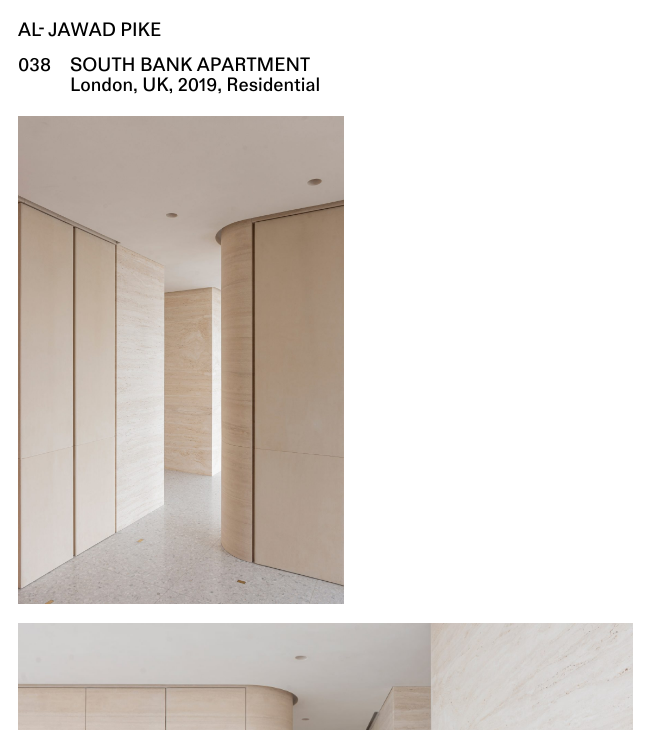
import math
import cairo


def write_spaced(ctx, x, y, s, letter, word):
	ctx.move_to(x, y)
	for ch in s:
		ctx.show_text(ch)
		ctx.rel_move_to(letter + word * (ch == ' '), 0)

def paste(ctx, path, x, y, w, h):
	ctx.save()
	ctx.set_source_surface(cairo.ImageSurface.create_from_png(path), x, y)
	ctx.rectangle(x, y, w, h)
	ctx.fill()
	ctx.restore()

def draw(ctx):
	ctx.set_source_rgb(1, 1, 1)
	ctx.paint()
	ctx.select_font_face('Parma')
	ctx.set_font_size(18.4)
	ctx.set_source_rgb(0, 0, 0)
	ctx.move_to(18, 36)
	ctx.show_text('AL')
	ctx.move_to(48, 36)
	ctx.show_text('JAWAD PIKE')
	write_spaced(ctx, 38, 34, '-', 6, 0)
	for x, y, s in [
		(18, 71, '038'),
		(70, 71, 'SOUTH BANK APARTMENT'),
		(70, 91, 'London, UK, 2019, Residential'),
	]:
		ctx.move_to(x, y)
		ctx.show_text(s)
	paste(ctx, 'media/1.png', 18, 116, 326, 488)
	paste(ctx, 'media/2.png', 18, 623, 615, 107)


surface = cairo.ImageSurface(cairo.FORMAT_RGB24, 651, 730)
ctx = cairo.Context(surface)
options = cairo.FontOptions()
options.set_hint_metrics(cairo.HINT_METRICS_OFF)
options.set_hint_style(cairo.HINT_STYLE_NONE)
ctx.set_font_options(options)
ctx.set_miter_limit(4)
draw(ctx)
surface.write_to_png('image.png')
